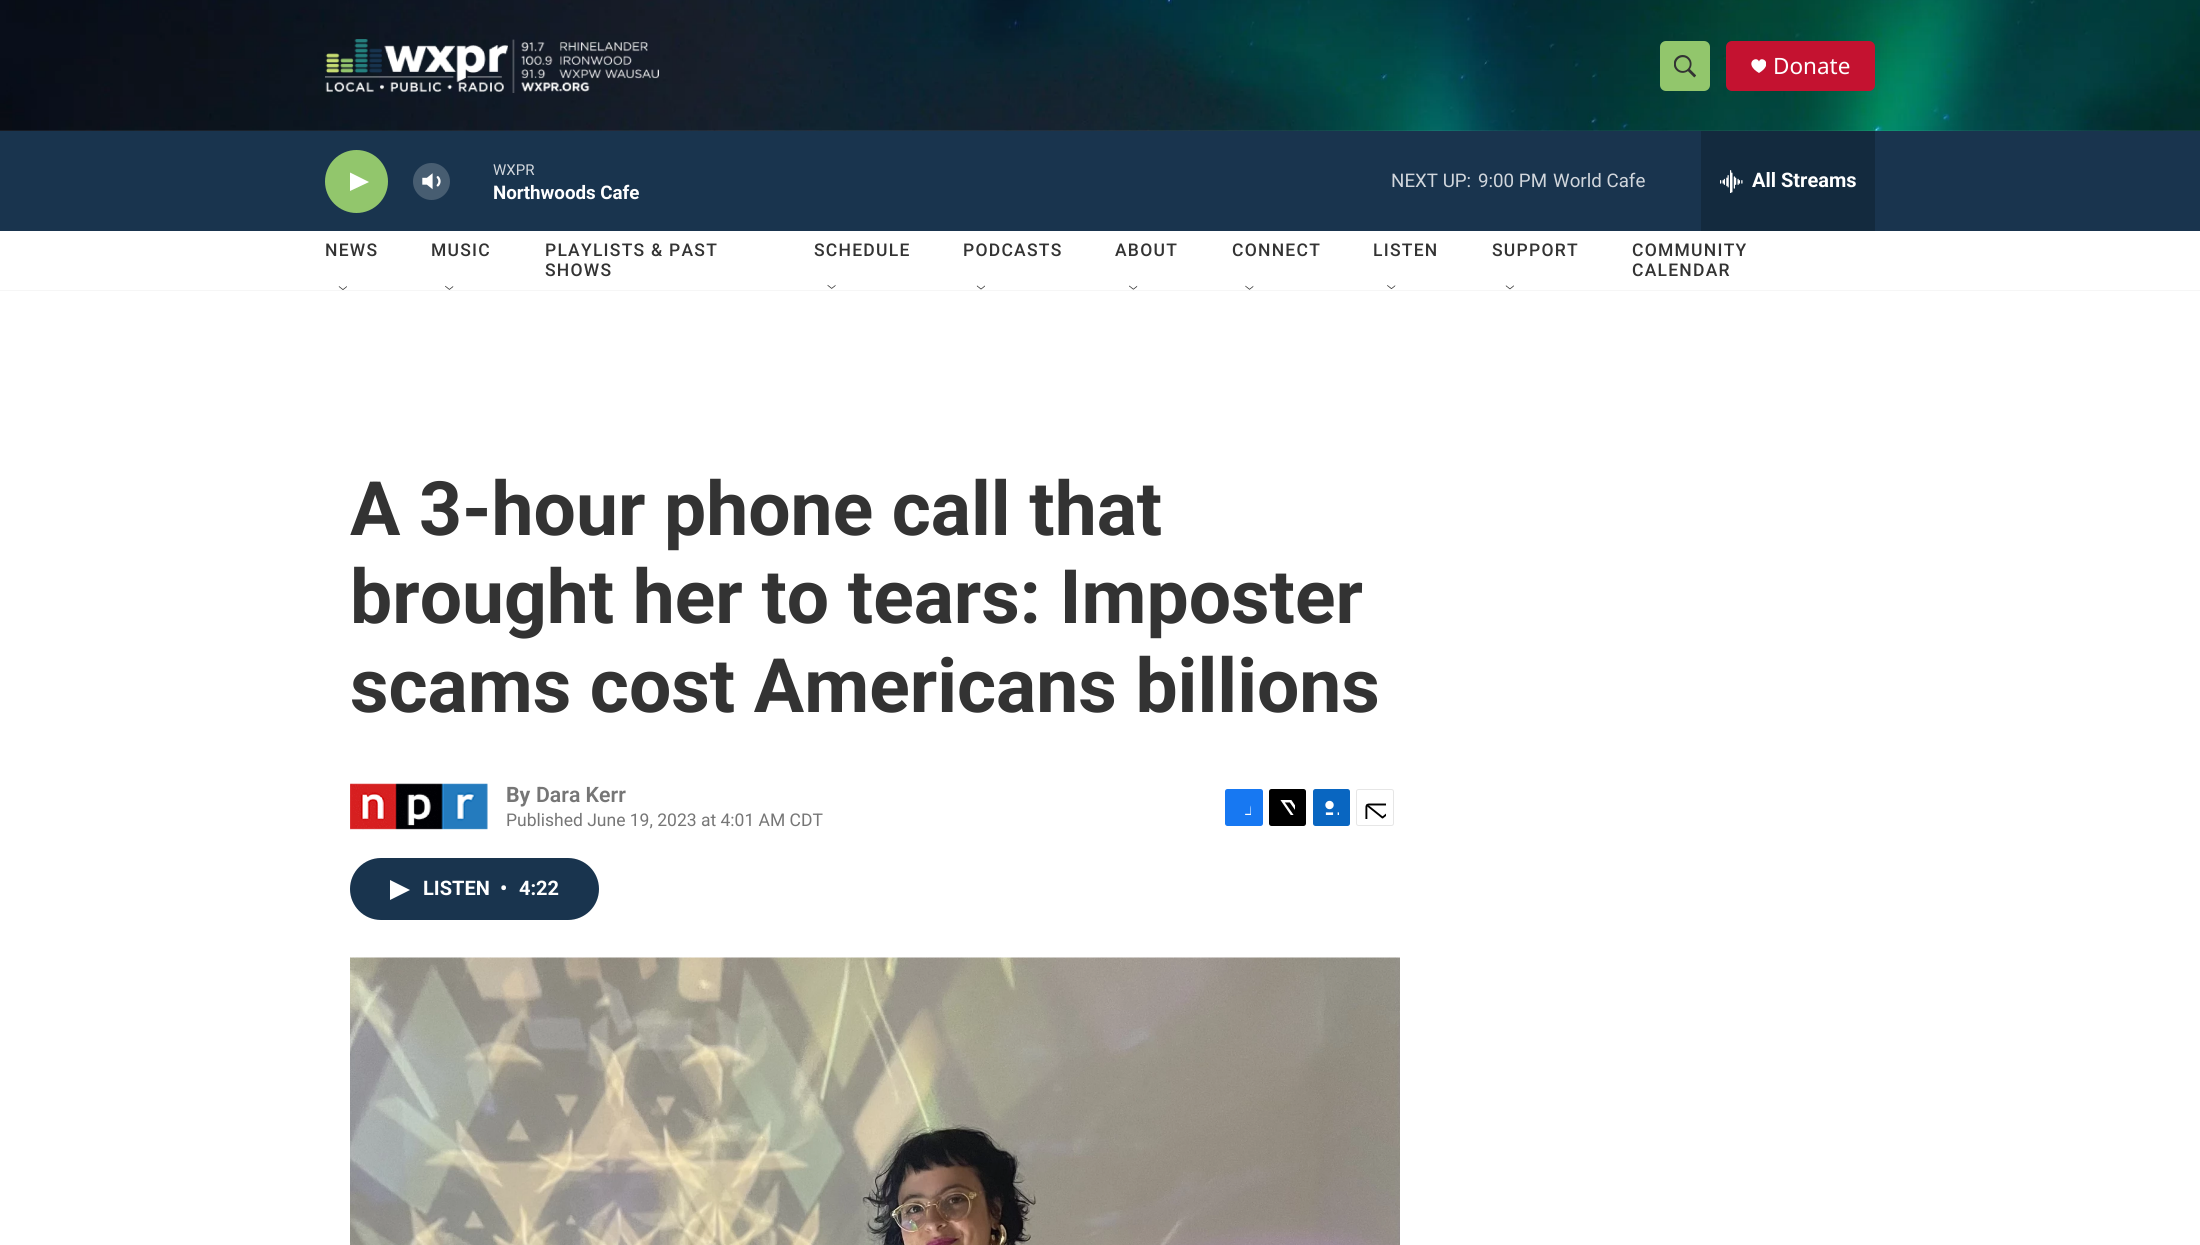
import math
import cairo


def write_spaced(ctx, x, y, s, letter, word):
	ctx.move_to(x, y)
	for ch in s:
		ctx.show_text(ch)
		ctx.rel_move_to(letter + word * (ch == ' '), 0)

def round_path(ctx, x, y, w, h, r):
	ctx.new_sub_path()
	for i, (u, v) in enumerate([(x + w - r, y + h - r), (x + r, y + h - r), (x + r, y + r), (x + w - r, y + r)]):
		ctx.arc(u, v, r, i * math.pi / 2, (i + 1) * math.pi / 2)
	ctx.close_path()

def paste(ctx, path, x, y, w, h):
	ctx.save()
	ctx.set_source_surface(cairo.ImageSurface.create_from_png(path), x, y)
	ctx.rectangle(x, y, w, h)
	ctx.fill()
	ctx.restore()

def draw(ctx):
	ctx.set_source_rgb(1, 1, 1)
	ctx.paint()
	ctx.set_source_rgb(0.961, 0.961, 0.961)
	ctx.rectangle(0, 290, 2200, 1)
	ctx.fill()
	paste(ctx, 'media/1.png', 0, 0, 2200, 131)
	paste(ctx, 'media/2.png', 325, 39, 334, 54)
	ctx.set_source_rgb(0.573, 0.776, 0.424)
	round_path(ctx, 1660, 41, 50, 50, 6)
	ctx.fill()
	paste(ctx, 'media/3.png', 1674, 55, 22, 23)
	ctx.set_source_rgb(0.769, 0.071, 0.188)
	round_path(ctx, 1726, 41, 149, 50, 6)
	ctx.fill()
	ctx.save()
	ctx.rectangle(1751, 59, 15, 15)
	ctx.clip()
	ctx.set_source_rgb(1, 1, 1)
	ctx.new_path()
	ctx.move_to(1759, 61.5)
	ctx.curve_to(1756.5, 55, 1743, 63.5, 1759, 73)
	ctx.curve_to(1774.5, 63.5, 1761, 55, 1759, 61.5)
	ctx.close_path()
	ctx.fill()
	ctx.restore()
	ctx.select_font_face('Noto Sans')
	ctx.set_font_size(22.5)
	ctx.set_source_rgb(1, 1, 1)
	ctx.move_to(1773, 74)
	ctx.show_text('Donate')
	ctx.set_source_rgb(0.098, 0.204, 0.306)
	ctx.rectangle(0, 131, 2200, 100)
	ctx.fill()
	ctx.set_source_rgb(0.573, 0.776, 0.424)
	ctx.arc(356.5, 181.5, 31.5, 0, 2 * math.pi)
	ctx.fill()
	ctx.set_source_rgb(1, 1, 1)
	ctx.new_path()
	ctx.move_to(350, 172.5)
	ctx.line_to(369, 182)
	ctx.line_to(350, 191)
	ctx.close_path()
	ctx.fill()
	paste(ctx, 'media/4.png', 422, 173, 19, 17)
	ctx.set_source_rgba(1, 1, 1, 0.2)
	ctx.arc(431.5, 181.5, 18.5, 0, 2 * math.pi)
	ctx.fill()
	ctx.select_font_face('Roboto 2')
	ctx.set_font_size(15)
	ctx.set_source_rgb(0.82, 0.839, 0.863)
	ctx.move_to(493, 175)
	ctx.show_text('WXPR')
	ctx.select_font_face('Roboto 2', cairo.FONT_SLANT_NORMAL, cairo.FONT_WEIGHT_BOLD)
	ctx.set_font_size(18.75)
	ctx.set_source_rgb(1, 1, 1)
	ctx.move_to(493, 199)
	ctx.show_text('Northwoods Cafe')
	ctx.select_font_face('Roboto 2')
	ctx.set_source_rgb(0.82, 0.839, 0.863)
	for x, y, s in [
		(1391, 187, 'NEXT UP:'),
		(1478, 187, '9:00 PM'),
		(1553, 187, 'World Cafe'),
	]:
		ctx.move_to(x, y)
		ctx.show_text(s)
	ctx.set_source_rgb(0.078, 0.165, 0.243)
	ctx.rectangle(1701, 131, 174, 100)
	ctx.fill()
	paste(ctx, 'media/5.png', 1720, 170, 23, 23)
	ctx.select_font_face('Roboto 2', cairo.FONT_SLANT_NORMAL, cairo.FONT_WEIGHT_BOLD)
	ctx.set_font_size(20)
	ctx.set_source_rgb(1, 1, 1)
	ctx.move_to(1752, 187)
	ctx.show_text('All Streams')
	ctx.select_font_face('Roboto Medium')
	ctx.set_font_size(17.5)
	ctx.set_source_rgb(0.2, 0.2, 0.2)
	write_spaced(ctx, 325, 256, 'NEWS', 1.25, 0)
	paste(ctx, 'media/6.png', 338, 286, 9, 4)
	write_spaced(ctx, 431, 256, 'MUSIC', 1.25, 0)
	paste(ctx, 'media/7.png', 445, 285, 9, 5)
	for x, y, s in [
		(545, 256, 'PLAYLISTS & PAST'),
		(545, 276, 'SHOWS'),
		(814, 256, 'SCHEDULE'),
	]:
		write_spaced(ctx, x, y, s, 1.25, 0)
	paste(ctx, 'media/8.png', 827, 284, 9, 5)
	write_spaced(ctx, 963, 256, 'PODCASTS', 1.25, 0)
	paste(ctx, 'media/9.png', 976, 285, 9, 5)
	write_spaced(ctx, 1115, 256, 'ABOUT', 1.25, 0)
	paste(ctx, 'media/10.png', 1129, 285, 9, 5)
	write_spaced(ctx, 1232, 256, 'CONNECT', 1.25, 0)
	paste(ctx, 'media/11.png', 1245, 285, 9, 5)
	write_spaced(ctx, 1373, 256, 'LISTEN', 1.25, 0)
	paste(ctx, 'media/12.png', 1387, 285, 9, 4)
	write_spaced(ctx, 1492, 256, 'SUPPORT', 1.25, 0)
	paste(ctx, 'media/13.png', 1505, 285, 9, 5)
	write_spaced(ctx, 1632, 256, 'COMMUNITY', 1.25, 0)
	write_spaced(ctx, 1632, 276, 'CALENDAR', 1.25, 0)
	ctx.select_font_face('Roboto', cairo.FONT_SLANT_NORMAL, cairo.FONT_WEIGHT_BOLD)
	ctx.set_font_size(75)
	for x, y, s in [
		(350, 535, 'A 3-hour phone call that'),
		(350, 623, 'brought her to tears: Imposter'),
		(350, 712, 'scams cost Americans billions'),
	]:
		ctx.move_to(x, y)
		ctx.show_text(s)
	paste(ctx, 'media/14.png', 350, 783, 138, 47)
	ctx.set_font_size(21.25)
	ctx.set_source_rgb(0.463, 0.463, 0.463)
	ctx.move_to(506, 802)
	ctx.show_text('By')
	ctx.select_font_face('Roboto SemiBold')
	ctx.move_to(536, 802)
	ctx.show_text('Dara Kerr')
	ctx.select_font_face('Roboto')
	ctx.set_font_size(17.5)
	ctx.move_to(506, 826)
	ctx.show_text('Published June 19, 2023 at 4:01 AM CDT')
	ctx.set_source_rgb(0.09, 0.471, 0.949)
	round_path(ctx, 1225, 789, 38, 37, 2.5)
	ctx.fill()
	paste(ctx, 'media/15.png', 1245, 805, 6, 10)
	ctx.set_source_rgb(0, 0, 0)
	round_path(ctx, 1269, 789, 37, 37, 2.5)
	ctx.fill()
	paste(ctx, 'media/16.png', 1280, 800, 15, 15)
	ctx.set_source_rgb(0.039, 0.4, 0.757)
	round_path(ctx, 1313, 789, 37, 37, 2.5)
	ctx.fill()
	paste(ctx, 'media/17.png', 1325, 800, 14, 15)
	round_path(ctx, 1356.5, 789.5, 37, 36, 2)
	ctx.set_source_rgb(0.902, 0.902, 0.902)
	ctx.set_line_width(1)
	ctx.stroke()
	paste(ctx, 'media/18.png', 1365, 803, 21, 16)
	ctx.set_source_rgb(0.098, 0.204, 0.306)
	round_path(ctx, 350, 858, 249, 62, 31)
	ctx.fill()
	ctx.set_source_rgb(1, 1, 1)
	ctx.new_path()
	ctx.move_to(390, 880)
	ctx.line_to(410, 890)
	ctx.line_to(390, 900)
	ctx.close_path()
	ctx.fill()
	ctx.select_font_face('Roboto 2', cairo.FONT_SLANT_NORMAL, cairo.FONT_WEIGHT_BOLD)
	ctx.set_font_size(20)
	for x, y, s in [
		(423, 895, 'LISTEN'),
		(500, 895, '•'),
		(519, 895, '4:22'),
	]:
		ctx.move_to(x, y)
		ctx.show_text(s)
	paste(ctx, 'media/19.png', 350, 957, 1050, 288)


surface = cairo.ImageSurface(cairo.FORMAT_RGB24, 2200, 1245)
ctx = cairo.Context(surface)
options = cairo.FontOptions()
options.set_hint_metrics(cairo.HINT_METRICS_OFF)
options.set_hint_style(cairo.HINT_STYLE_NONE)
ctx.set_font_options(options)
ctx.set_miter_limit(4)
draw(ctx)
surface.write_to_png('image.png')
